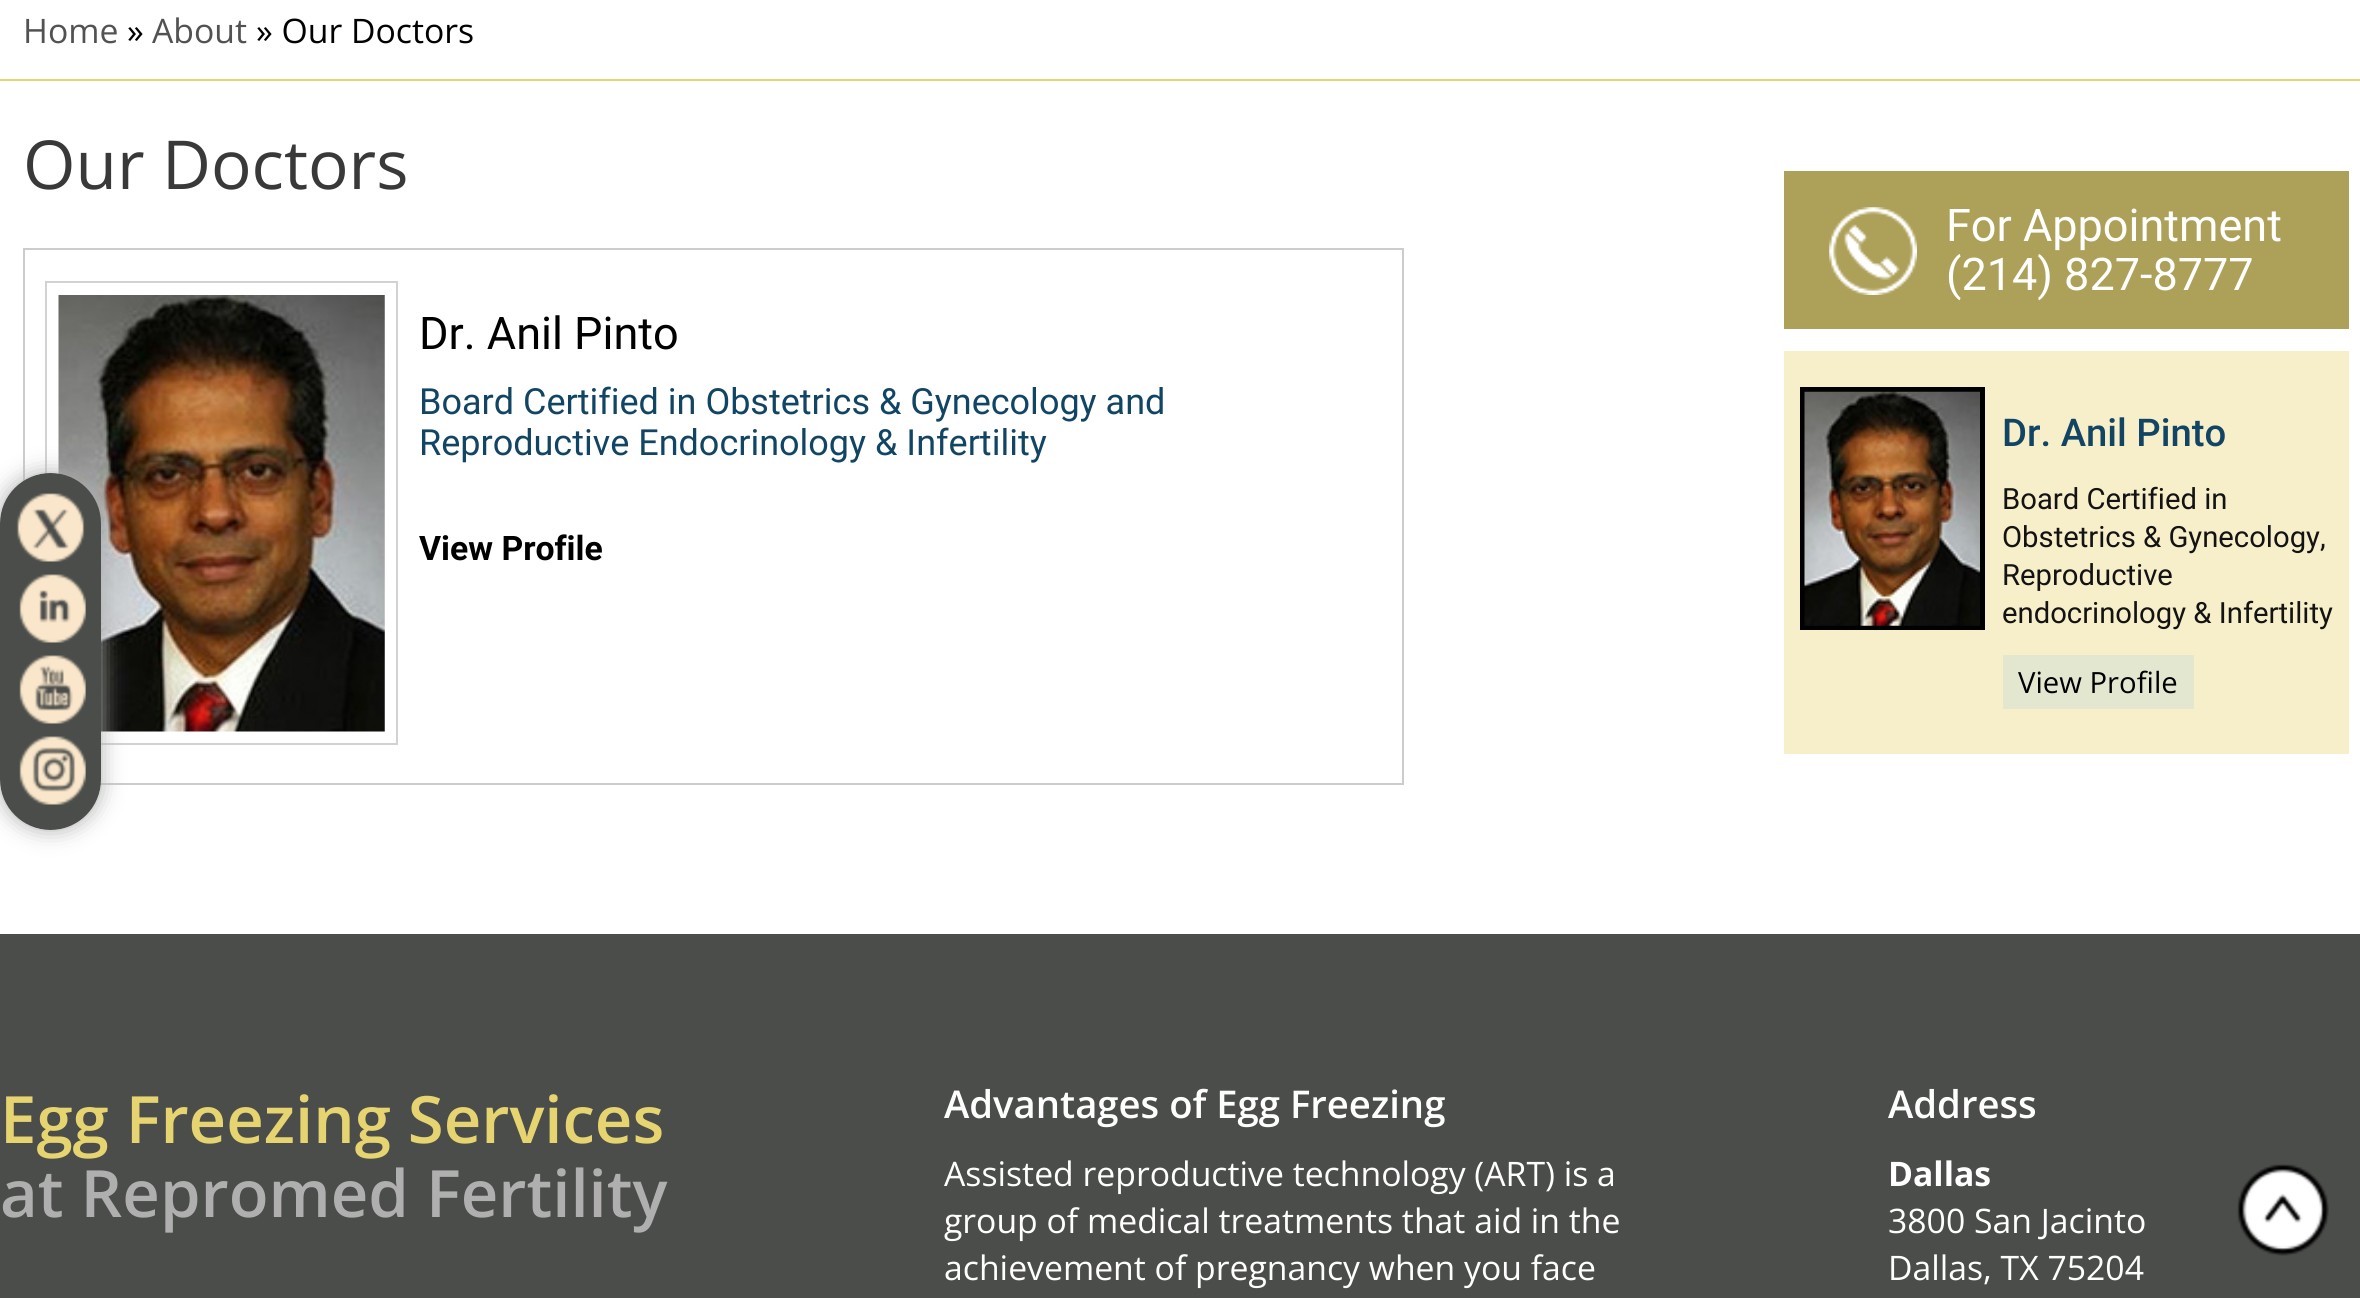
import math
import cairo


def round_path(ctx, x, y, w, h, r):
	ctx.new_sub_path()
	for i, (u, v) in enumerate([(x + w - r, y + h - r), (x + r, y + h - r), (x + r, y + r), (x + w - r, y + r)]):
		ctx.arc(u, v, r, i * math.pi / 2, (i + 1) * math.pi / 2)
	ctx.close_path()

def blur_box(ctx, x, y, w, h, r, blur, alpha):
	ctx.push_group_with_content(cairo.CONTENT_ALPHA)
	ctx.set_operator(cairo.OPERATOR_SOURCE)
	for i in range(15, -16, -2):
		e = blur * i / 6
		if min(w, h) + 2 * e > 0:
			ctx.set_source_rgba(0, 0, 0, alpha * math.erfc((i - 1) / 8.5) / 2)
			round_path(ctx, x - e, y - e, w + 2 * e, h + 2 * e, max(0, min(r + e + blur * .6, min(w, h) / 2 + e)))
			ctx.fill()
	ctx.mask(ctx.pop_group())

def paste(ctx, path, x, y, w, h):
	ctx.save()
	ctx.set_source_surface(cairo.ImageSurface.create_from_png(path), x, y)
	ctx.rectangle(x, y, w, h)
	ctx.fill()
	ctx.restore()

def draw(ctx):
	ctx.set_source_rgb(1, 1, 1)
	ctx.paint()
	ctx.set_source_rgb(0.902, 0.831, 0.439)
	ctx.rectangle(0, 79, 2360, 2)
	ctx.fill()
	ctx.select_font_face('Open Sans')
	ctx.set_font_size(33.75)
	ctx.set_source_rgb(0.318, 0.325, 0.322)
	ctx.move_to(23, 43)
	ctx.show_text('Home')
	ctx.set_source_rgb(0, 0, 0)
	ctx.move_to(127, 43)
	ctx.show_text('»')
	ctx.set_source_rgb(0.318, 0.325, 0.322)
	ctx.move_to(152, 43)
	ctx.show_text('About')
	ctx.set_source_rgb(0, 0, 0)
	ctx.move_to(256, 43)
	ctx.show_text('» Our Doctors')
	ctx.set_font_size(67.5)
	ctx.set_source_rgb(0.224, 0.224, 0.224)
	ctx.move_to(23, 189)
	ctx.show_text('Our Doctors')
	ctx.rectangle(24, 249, 1379, 535)
	ctx.set_source_rgb(0.8, 0.8, 0.8)
	ctx.stroke()
	paste(ctx, 'media/1.png', 58, 295, 327, 437)
	ctx.rectangle(46, 282, 351, 462)
	ctx.set_source_rgb(0.827, 0.824, 0.824)
	ctx.stroke()
	ctx.select_font_face('Roboto')
	ctx.set_font_size(45)
	ctx.set_source_rgb(0, 0, 0)
	ctx.move_to(419, 349)
	ctx.show_text('Dr. Anil Pinto')
	ctx.set_font_size(36)
	ctx.set_source_rgb(0.071, 0.271, 0.392)
	ctx.move_to(419, 414)
	ctx.show_text('Board Certified in Obstetrics & Gynecology and')
	ctx.move_to(419, 455)
	ctx.show_text('Reproductive Endocrinology & Infertility')
	ctx.select_font_face('Roboto', cairo.FONT_SLANT_NORMAL, cairo.FONT_WEIGHT_BOLD)
	ctx.set_font_size(33.75)
	ctx.set_source_rgb(0, 0, 0)
	ctx.move_to(419, 560)
	ctx.show_text('View Profile')
	ctx.set_source_rgb(0.678, 0.627, 0.345)
	ctx.rectangle(1784, 171, 565, 158)
	ctx.fill()
	paste(ctx, 'media/2.png', 1829, 207, 88, 88)
	ctx.select_font_face('Roboto')
	ctx.set_font_size(45)
	ctx.set_source_rgb(1, 1, 1)
	ctx.move_to(1946, 241)
	ctx.show_text('For Appointment')
	ctx.move_to(1946, 290)
	ctx.show_text('(214) 827-8777')
	ctx.set_source_rgb(0.965, 0.937, 0.792)
	ctx.rectangle(1784, 351, 565, 403)
	ctx.fill()
	ctx.rectangle(1802.5, 389.5, 180, 238)
	ctx.set_source_rgb(0, 0, 0)
	ctx.set_line_width(5)
	ctx.stroke()
	paste(ctx, 'media/3.png', 1804, 391, 176, 235)
	ctx.select_font_face('Roboto Medium')
	ctx.set_font_size(38.25)
	ctx.set_source_rgb(0.071, 0.271, 0.392)
	ctx.move_to(2002, 446)
	ctx.show_text('Dr. Anil Pinto')
	ctx.select_font_face('Roboto')
	ctx.set_font_size(29.25)
	ctx.set_source_rgb(0.075, 0.075, 0.075)
	for x, y, s in [
		(2002, 509, 'Board Certified in'),
		(2002, 547, 'Obstetrics & Gynecology,'),
		(2002, 585, 'Reproductive'),
		(2002, 623, 'endocrinology & Infertility'),
	]:
		ctx.move_to(x, y)
		ctx.show_text(s)
	ctx.set_source_rgb(0.894, 0.906, 0.816)
	ctx.rectangle(2003, 655, 191, 54)
	ctx.fill()
	ctx.select_font_face('Open Sans')
	ctx.set_source_rgb(0, 0, 0)
	ctx.move_to(2018, 693)
	ctx.show_text('View Profile')
	ctx.save()
	ctx.set_fill_rule(cairo.FILL_RULE_EVEN_ODD)
	ctx.new_path()
	ctx.move_to(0, 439)
	ctx.line_to(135, 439)
	ctx.line_to(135, 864)
	ctx.line_to(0, 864)
	ctx.close_path()
	ctx.move_to(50.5, 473)
	ctx.curve_to(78.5, 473, 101, 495.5, 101, 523.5)
	ctx.line_to(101, 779.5)
	ctx.curve_to(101, 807.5, 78.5, 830, 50.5, 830)
	ctx.curve_to(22.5, 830, 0, 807.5, 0, 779.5)
	ctx.line_to(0, 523.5)
	ctx.curve_to(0, 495.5, 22.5, 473, 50.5, 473)
	ctx.close_path()
	ctx.clip()
	ctx.set_source_rgb(0.686, 0.686, 0.686)
	blur_box(ctx, 0, 473, 101, 357, 50.5, 11, 1)
	ctx.restore()
	ctx.set_source_rgb(0.294, 0.302, 0.29)
	round_path(ctx, 0, 473, 101, 357, 50.5)
	ctx.fill()
	paste(ctx, 'media/4.png', 16, 493, 69, 69)
	paste(ctx, 'media/5.png', 19, 574, 67, 69)
	paste(ctx, 'media/6.png', 19, 655, 67, 69)
	paste(ctx, 'media/7.png', 19, 736, 67, 69)
	ctx.rectangle(0, 934, 2360, 364)
	ctx.fill()
	ctx.select_font_face('Open Sans SemiBold')
	ctx.set_font_size(65.25)
	ctx.set_source_rgb(0.902, 0.831, 0.439)
	ctx.move_to(0, 1143)
	ctx.show_text('Egg Freezing Services')
	ctx.set_source_rgb(0.686, 0.686, 0.686)
	ctx.move_to(0, 1217)
	ctx.show_text('at Repromed Fertility')
	ctx.set_font_size(38.25)
	ctx.set_source_rgb(1, 1, 1)
	ctx.move_to(944, 1118)
	ctx.show_text('Advantages of Egg Freezing')
	ctx.select_font_face('Open Sans')
	ctx.set_font_size(33.75)
	for x, y, s in [
		(944, 1186, 'Assisted reproductive technology (ART) is a'),
		(944, 1233, 'group of medical treatments that aid in the'),
		(944, 1280, 'achievement of pregnancy when you face'),
	]:
		ctx.move_to(x, y)
		ctx.show_text(s)
	ctx.select_font_face('Open Sans SemiBold')
	ctx.set_font_size(38.25)
	ctx.move_to(1888, 1118)
	ctx.show_text('Address')
	ctx.select_font_face('Open Sans', cairo.FONT_SLANT_NORMAL, cairo.FONT_WEIGHT_BOLD)
	ctx.set_font_size(33.75)
	ctx.move_to(1888, 1186)
	ctx.show_text('Dallas')
	ctx.select_font_face('Open Sans')
	ctx.move_to(1888, 1233)
	ctx.show_text('3800 San Jacinto')
	ctx.move_to(1888, 1280)
	ctx.show_text('Dallas, TX 75204')
	paste(ctx, 'media/8.png', 2237, 1164, 92, 92)


surface = cairo.ImageSurface(cairo.FORMAT_RGB24, 2360, 1298)
ctx = cairo.Context(surface)
options = cairo.FontOptions()
options.set_hint_metrics(cairo.HINT_METRICS_OFF)
options.set_hint_style(cairo.HINT_STYLE_NONE)
ctx.set_font_options(options)
ctx.set_miter_limit(4)
draw(ctx)
surface.write_to_png('image.png')
